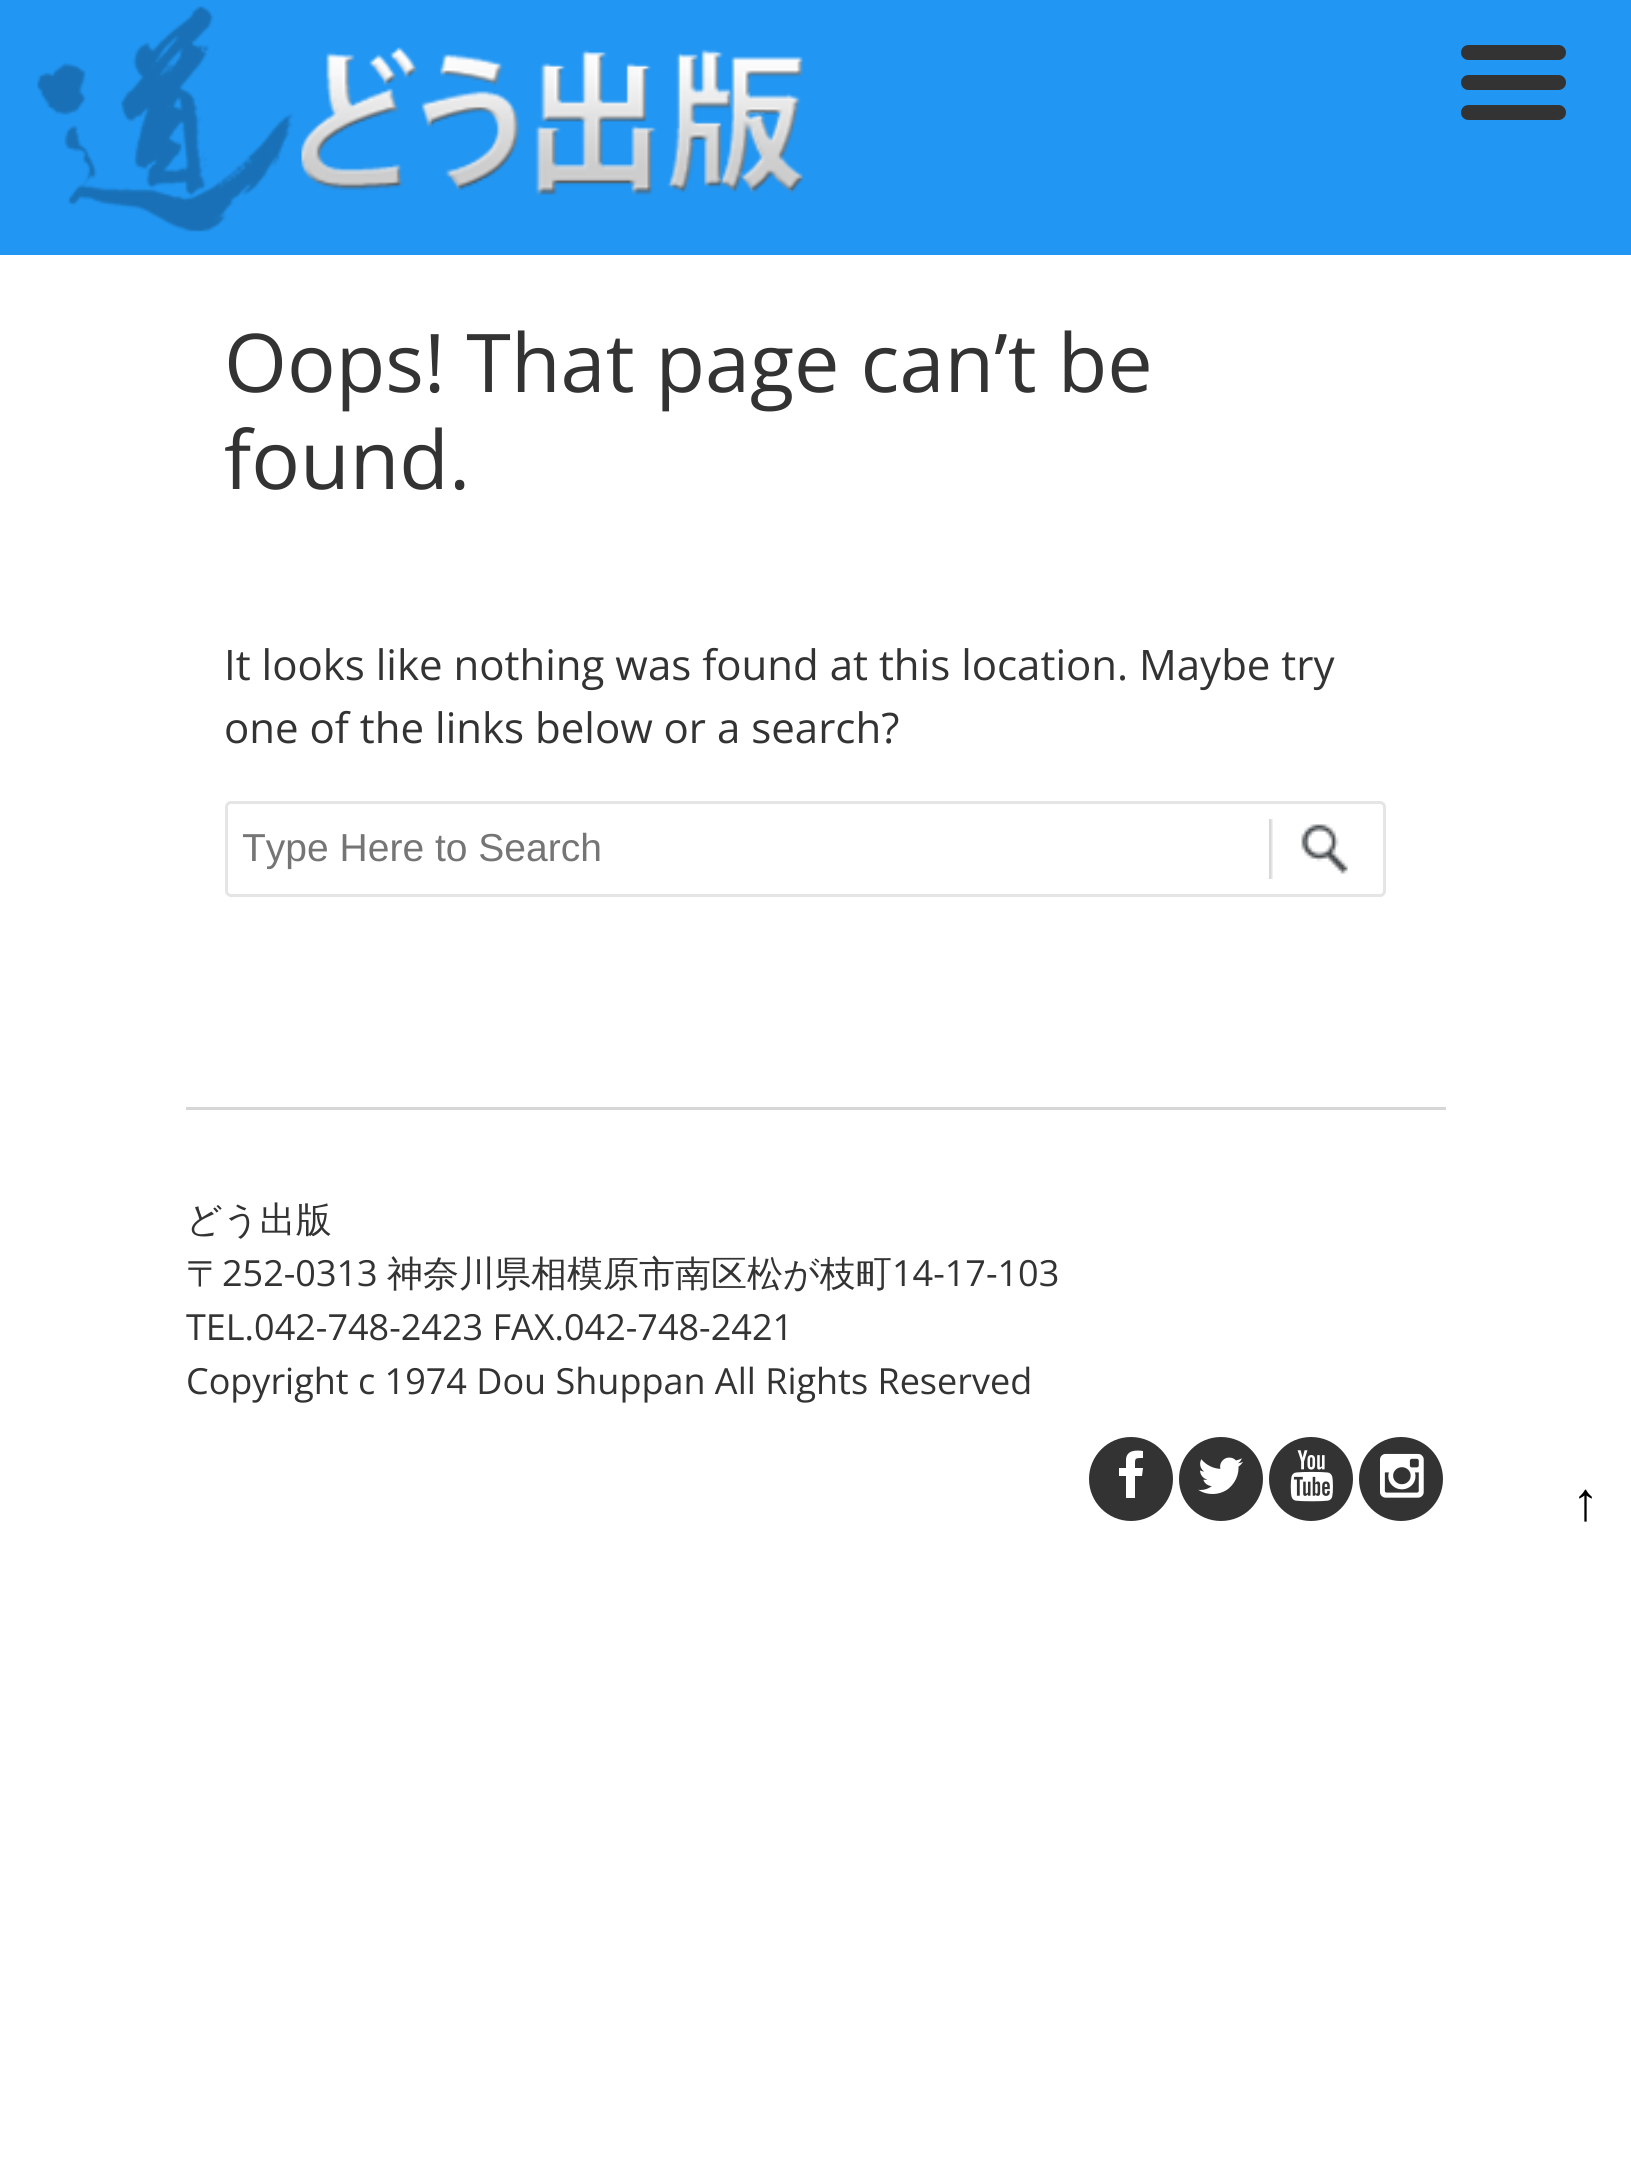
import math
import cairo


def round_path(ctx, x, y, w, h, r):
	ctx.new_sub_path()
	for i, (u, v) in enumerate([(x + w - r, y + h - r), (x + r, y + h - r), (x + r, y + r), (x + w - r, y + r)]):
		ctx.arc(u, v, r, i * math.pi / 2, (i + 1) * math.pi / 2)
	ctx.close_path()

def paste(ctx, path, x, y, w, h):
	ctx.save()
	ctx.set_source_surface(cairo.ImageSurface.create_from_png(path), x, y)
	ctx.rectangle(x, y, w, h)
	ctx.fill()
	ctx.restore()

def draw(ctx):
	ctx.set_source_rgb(1, 1, 1)
	ctx.paint()
	ctx.set_source_rgb(0.129, 0.588, 0.953)
	ctx.rectangle(0, 0, 1631, 255)
	ctx.fill()
	paste(ctx, 'media/1.png', 37, 6, 766, 226)
	ctx.set_source_rgb(0.2, 0.2, 0.2)
	round_path(ctx, 1461, 45, 105, 15, 7.5)
	ctx.fill()
	round_path(ctx, 1461, 75, 105, 15, 7.5)
	ctx.fill()
	round_path(ctx, 1461, 105, 105, 15, 7.5)
	ctx.fill()
	ctx.select_font_face('Open Sans')
	ctx.set_font_size(81)
	ctx.move_to(224, 392)
	ctx.show_text('Oops! That page can’t be')
	ctx.move_to(224, 489)
	ctx.show_text('found.')
	ctx.set_font_size(42)
	ctx.move_to(224, 680)
	ctx.show_text('It looks like nothing was found at this location. Maybe try')
	ctx.move_to(224, 743)
	ctx.show_text('one of the links below or a search?')
	paste(ctx, 'media/2.png', 1269, 819, 79, 60)
	round_path(ctx, 226.5, 802.5, 1158, 93, 4.5)
	ctx.set_source_rgb(0.898, 0.898, 0.898)
	ctx.set_line_width(3)
	ctx.stroke()
	ctx.save()
	ctx.rectangle(243, 825, 1044, 45)
	ctx.clip()
	ctx.select_font_face('Liberation Sans')
	ctx.set_font_size(39)
	ctx.set_source_rgb(0.459, 0.459, 0.459)
	ctx.move_to(242, 861)
	ctx.show_text('Type Here to Search')
	ctx.restore()
	ctx.set_source_rgb(0.839, 0.839, 0.839)
	ctx.rectangle(186, 1107, 1260, 3)
	ctx.fill()
	ctx.select_font_face('WenQuanYi Zen Hei Medium')
	ctx.set_font_size(36)
	ctx.set_source_rgb(0.2, 0.2, 0.2)
	ctx.move_to(186, 1232)
	ctx.show_text('どう出版')
	ctx.move_to(186, 1286)
	ctx.show_text('〒')
	ctx.select_font_face('Open Sans')
	ctx.move_to(222, 1286)
	ctx.show_text('252-0313')
	ctx.select_font_face('WenQuanYi Zen Hei Medium')
	ctx.move_to(387, 1286)
	ctx.show_text('神奈川県相模原市南区松が枝町')
	ctx.select_font_face('Open Sans')
	for x, y, s in [
		(892, 1286, '14-17-103'),
		(186, 1340, 'TEL.042-748-2423 FAX.042-748-2421'),
		(186, 1394, 'Copyright c 1974 Dou Shuppan All Rights Reserved'),
	]:
		ctx.move_to(x, y)
		ctx.show_text(s)
	ctx.new_path()
	ctx.arc(1131, 1479, 42, 0, 2 * math.pi)
	ctx.fill()
	ctx.set_source_rgb(1, 1, 1)
	ctx.new_path()
	ctx.move_to(1119, 1476)
	ctx.line_to(1119, 1468)
	ctx.line_to(1126, 1468)
	ctx.line_to(1126, 1459)
	ctx.curve_to(1127, 1450, 1136, 1450, 1143, 1451)
	ctx.line_to(1143, 1458)
	ctx.curve_to(1134, 1458, 1135, 1458, 1135, 1468)
	ctx.line_to(1143, 1468)
	ctx.line_to(1142, 1476)
	ctx.line_to(1135, 1476)
	ctx.line_to(1135, 1498)
	ctx.line_to(1126, 1498)
	ctx.line_to(1126, 1476)
	ctx.close_path()
	ctx.fill()
	ctx.set_source_rgb(0.2, 0.2, 0.2)
	ctx.arc(1221, 1479, 42, 0, 2 * math.pi)
	ctx.fill()
	paste(ctx, 'media/3.png', 1198, 1457, 45, 37)
	ctx.arc(1311, 1479, 42, 0, 2 * math.pi)
	ctx.fill()
	paste(ctx, 'media/4.png', 1290, 1450, 43, 52)
	ctx.arc(1401, 1479, 42, 0, 2 * math.pi)
	ctx.fill()
	paste(ctx, 'media/5.png', 1380, 1453, 44, 45)
	ctx.select_font_face('Liberation Sans')
	ctx.set_font_size(54)
	ctx.set_source_rgb(0, 0, 0)
	ctx.move_to(1572, 1520)
	ctx.show_text('↑')


surface = cairo.ImageSurface(cairo.FORMAT_RGB24, 1631, 2158)
ctx = cairo.Context(surface)
options = cairo.FontOptions()
options.set_hint_metrics(cairo.HINT_METRICS_OFF)
options.set_hint_style(cairo.HINT_STYLE_NONE)
ctx.set_font_options(options)
ctx.set_miter_limit(4)
draw(ctx)
surface.write_to_png('image.png')
